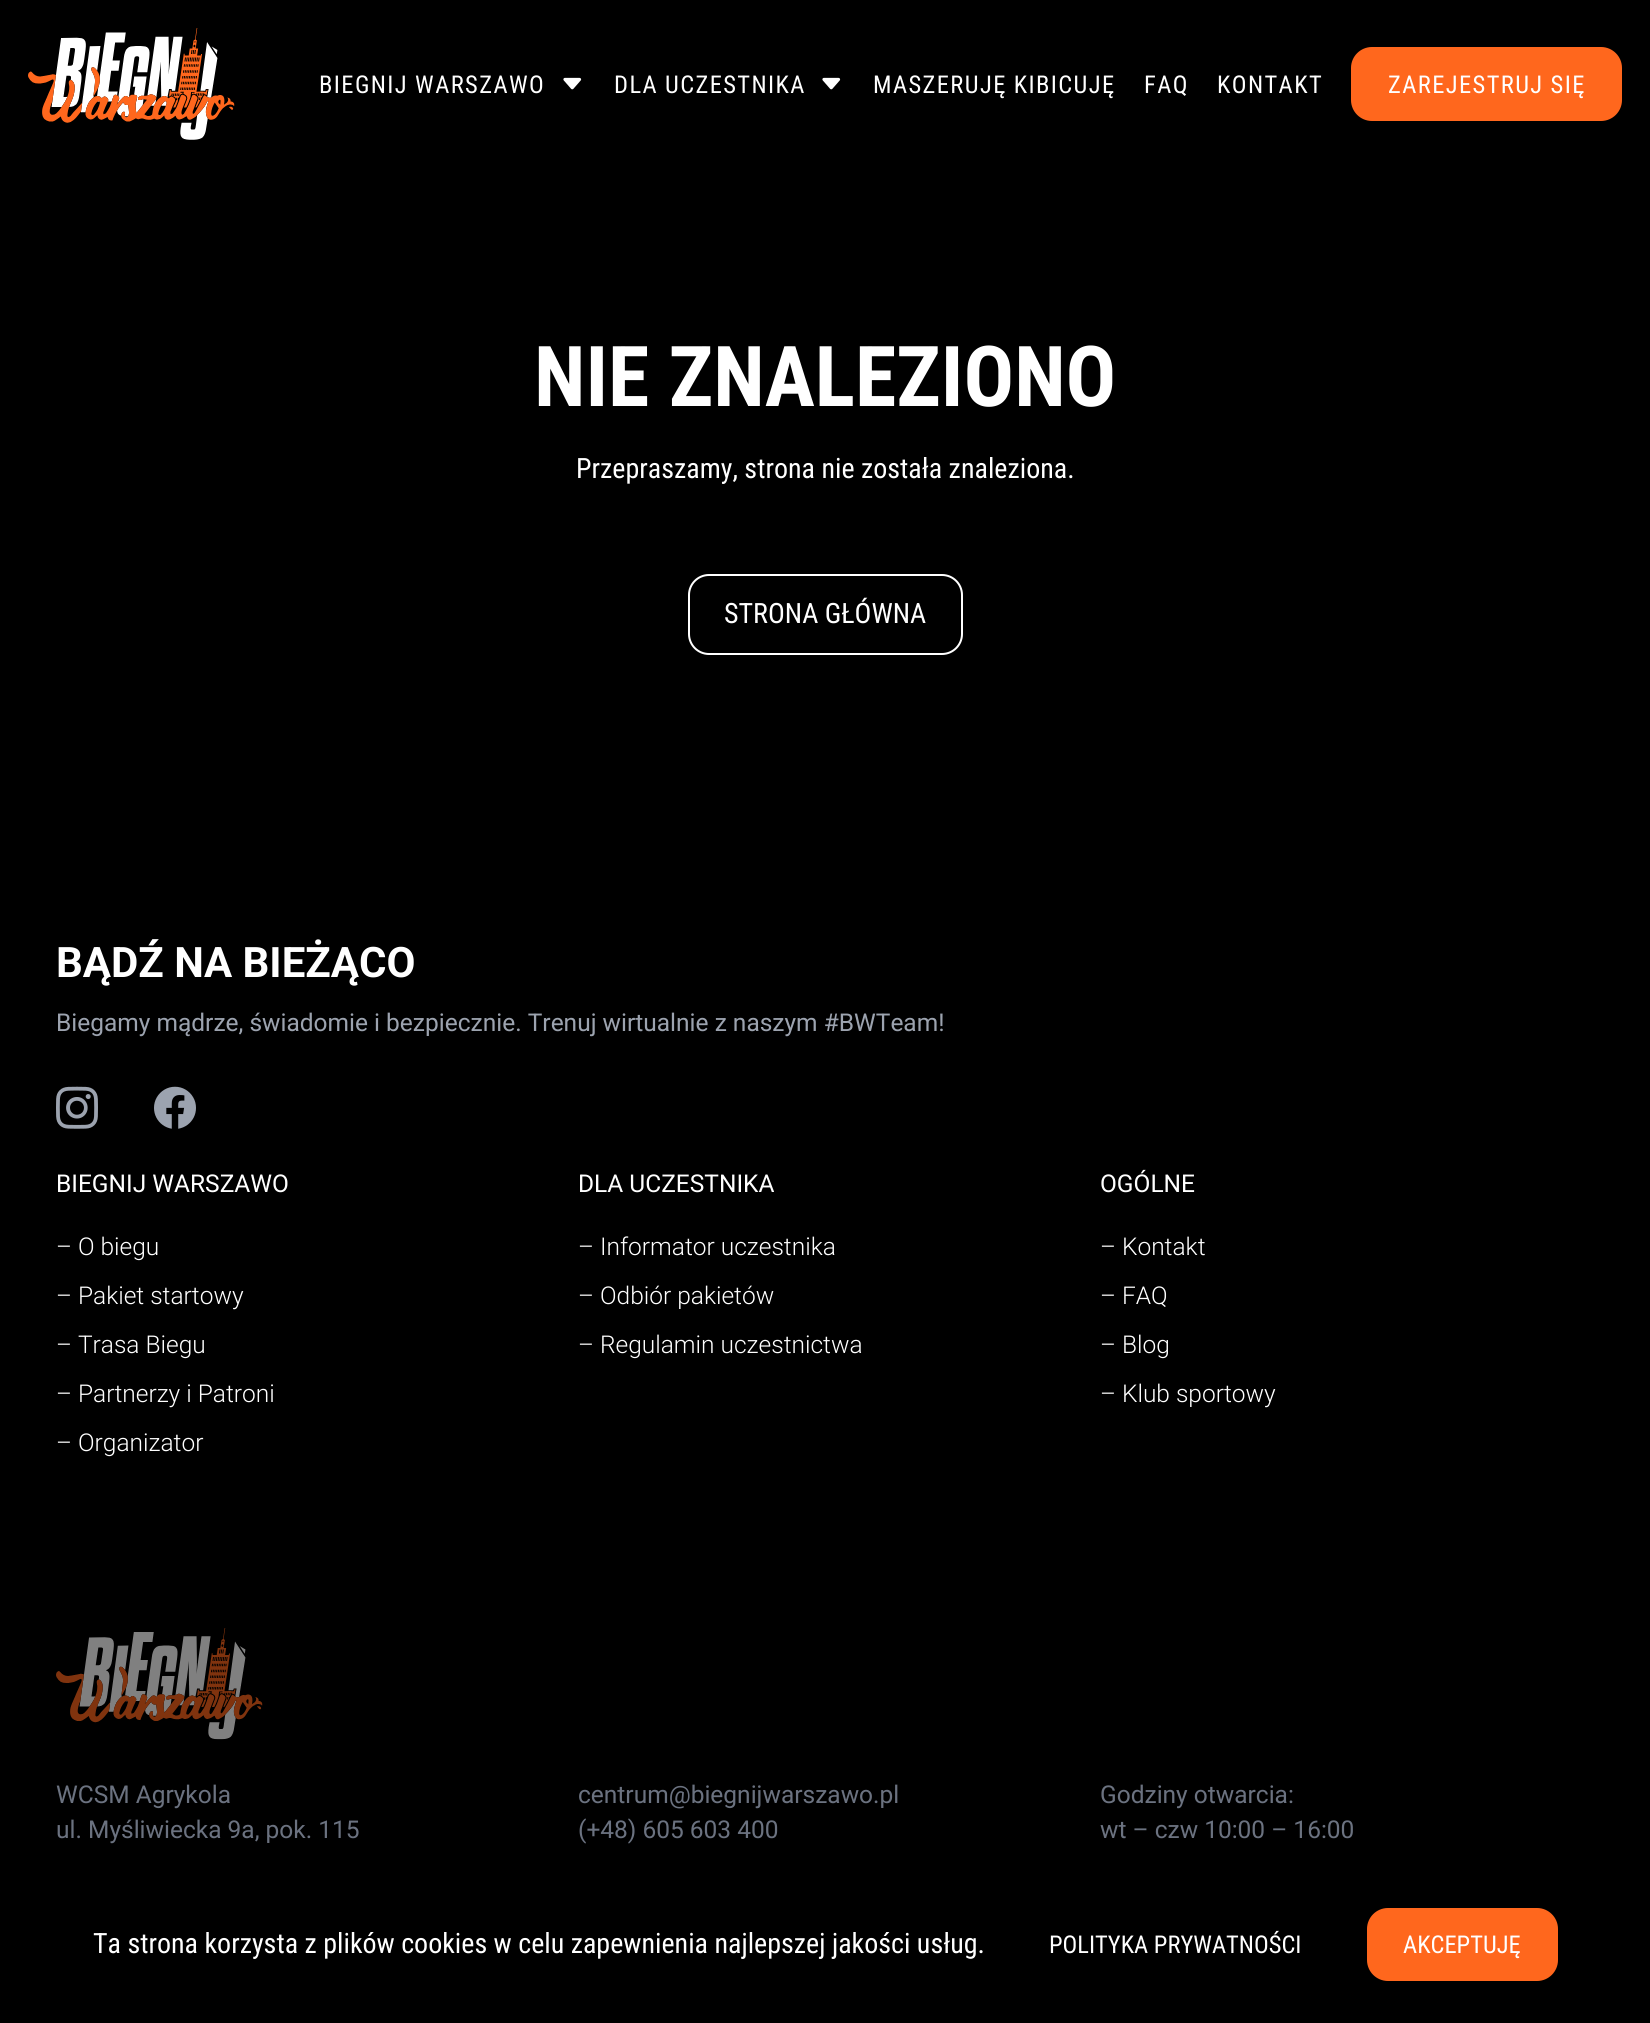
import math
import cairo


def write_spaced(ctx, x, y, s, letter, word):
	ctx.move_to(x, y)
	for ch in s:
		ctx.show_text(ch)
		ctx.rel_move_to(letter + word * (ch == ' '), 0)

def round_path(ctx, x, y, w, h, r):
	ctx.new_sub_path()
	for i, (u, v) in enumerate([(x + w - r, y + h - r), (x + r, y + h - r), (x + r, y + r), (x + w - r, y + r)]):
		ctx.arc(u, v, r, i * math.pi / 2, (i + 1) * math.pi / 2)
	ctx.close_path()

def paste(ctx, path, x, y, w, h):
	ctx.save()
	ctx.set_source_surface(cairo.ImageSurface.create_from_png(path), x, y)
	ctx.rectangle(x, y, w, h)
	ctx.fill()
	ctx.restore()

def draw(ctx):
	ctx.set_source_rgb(0, 0, 0)
	ctx.paint()
	paste(ctx, 'media/1.png', 28, 28, 207, 112)
	ctx.select_font_face('Roboto Condensed')
	ctx.set_font_size(24.5)
	ctx.set_source_rgb(1, 1, 1)
	write_spaced(ctx, 319, 93, 'BIEGNIJ WARSZAWO', 1.4, 0)
	paste(ctx, 'media/2.png', 563, 77, 19, 13)
	write_spaced(ctx, 614, 93, 'DLA UCZESTNIKA', 1.4, 0)
	paste(ctx, 'media/2.png', 822, 77, 19, 13)
	for x, y, s in [
		(873, 93, 'MASZERUJĘ KIBICUJĘ'),
		(1144, 93, 'FAQ'),
		(1217, 93, 'KONTAKT'),
	]:
		write_spaced(ctx, x, y, s, 1.4, 0)
	ctx.set_source_rgb(1, 0.404, 0.114)
	round_path(ctx, 1352, 48, 269, 72, 20)
	ctx.fill_preserve()
	ctx.stroke()
	ctx.set_source_rgb(1, 1, 1)
	write_spaced(ctx, 1388, 93, 'ZAREJESTRUJ SIĘ', 1.4, 0)
	ctx.select_font_face('Roboto Condensed', cairo.FONT_SLANT_NORMAL, cairo.FONT_WEIGHT_BOLD)
	ctx.set_font_size(84)
	ctx.move_to(534, 406)
	ctx.show_text('NIE ZNALEZIONO')
	ctx.select_font_face('Roboto Condensed')
	ctx.set_font_size(28)
	ctx.move_to(576, 478)
	ctx.show_text('Przepraszamy, strona nie została znaleziona.')
	round_path(ctx, 689, 575, 273, 79, 20)
	ctx.stroke()
	ctx.move_to(724, 623)
	ctx.show_text('STRONA GŁÓWNA')
	ctx.select_font_face('Roboto', cairo.FONT_SLANT_NORMAL, cairo.FONT_WEIGHT_BOLD)
	ctx.set_font_size(42)
	ctx.move_to(56, 977)
	ctx.show_text('BĄDŹ NA BIEŻĄCO')
	ctx.select_font_face('Roboto')
	ctx.set_font_size(24.5)
	ctx.set_source_rgb(0.612, 0.639, 0.686)
	ctx.move_to(56, 1031)
	ctx.show_text('Biegamy mądrze, świadomie i bezpiecznie. Trenuj wirtualnie z naszym #BWTeam!')
	paste(ctx, 'media/3.png', 56, 1086, 42, 43)
	paste(ctx, 'media/4.png', 154, 1086, 42, 43)
	ctx.set_source_rgb(1, 1, 1)
	ctx.move_to(56, 1192)
	ctx.show_text('BIEGNIJ WARSZAWO')
	ctx.select_font_face('Roboto Light')
	for x, y, s in [
		(56, 1255, '– O biegu'),
		(56, 1304, '– Pakiet startowy'),
		(56, 1353, '– Trasa Biegu'),
		(56, 1402, '– Partnerzy i Patroni'),
		(56, 1451, '– Organizator'),
	]:
		ctx.move_to(x, y)
		ctx.show_text(s)
	ctx.select_font_face('Roboto')
	ctx.move_to(578, 1192)
	ctx.show_text('DLA UCZESTNIKA')
	ctx.select_font_face('Roboto Light')
	for x, y, s in [
		(578, 1255, '– Informator uczestnika'),
		(578, 1304, '– Odbiór pakietów'),
		(578, 1353, '– Regulamin uczestnictwa'),
	]:
		ctx.move_to(x, y)
		ctx.show_text(s)
	ctx.select_font_face('Roboto')
	ctx.move_to(1100, 1192)
	ctx.show_text('OGÓLNE')
	ctx.select_font_face('Roboto Light')
	for x, y, s in [
		(1100, 1255, '– Kontakt'),
		(1100, 1304, '– FAQ'),
		(1100, 1353, '– Blog'),
		(1100, 1402, '– Klub sportowy'),
	]:
		ctx.move_to(x, y)
		ctx.show_text(s)
	paste(ctx, 'media/5.png', 56, 1628, 207, 112)
	ctx.select_font_face('Roboto')
	ctx.set_source_rgb(0.42, 0.447, 0.502)
	for x, y, s in [
		(56, 1803, 'WCSM Agrykola'),
		(56, 1838, 'ul. Myśliwiecka 9a, pok. 115'),
		(578, 1803, 'centrum@biegnijwarszawo.pl'),
		(578, 1838, '(+48) 605 603 400'),
		(1100, 1803, 'Godziny otwarcia:'),
		(1100, 1838, 'wt – czw 10:00 – 16:00'),
	]:
		ctx.move_to(x, y)
		ctx.show_text(s)
	ctx.select_font_face('Roboto Condensed')
	ctx.set_font_size(28)
	ctx.set_source_rgb(1, 1, 1)
	ctx.move_to(93, 1953)
	ctx.show_text('Ta strona korzysta z plików cookies w celu zapewnienia najlepszej jakości usług.')
	ctx.set_font_size(24.5)
	ctx.move_to(1049, 1953)
	ctx.show_text('POLITYKA PRYWATNOŚCI')
	ctx.set_source_rgb(1, 0.404, 0.114)
	round_path(ctx, 1368, 1909, 189, 71, 20)
	ctx.fill_preserve()
	ctx.stroke()
	ctx.set_source_rgb(1, 1, 1)
	ctx.move_to(1403, 1953)
	ctx.show_text('AKCEPTUJĘ')


surface = cairo.ImageSurface(cairo.FORMAT_RGB24, 1650, 2023)
ctx = cairo.Context(surface)
options = cairo.FontOptions()
options.set_hint_metrics(cairo.HINT_METRICS_OFF)
options.set_hint_style(cairo.HINT_STYLE_NONE)
ctx.set_font_options(options)
ctx.set_miter_limit(4)
draw(ctx)
surface.write_to_png('image.png')
